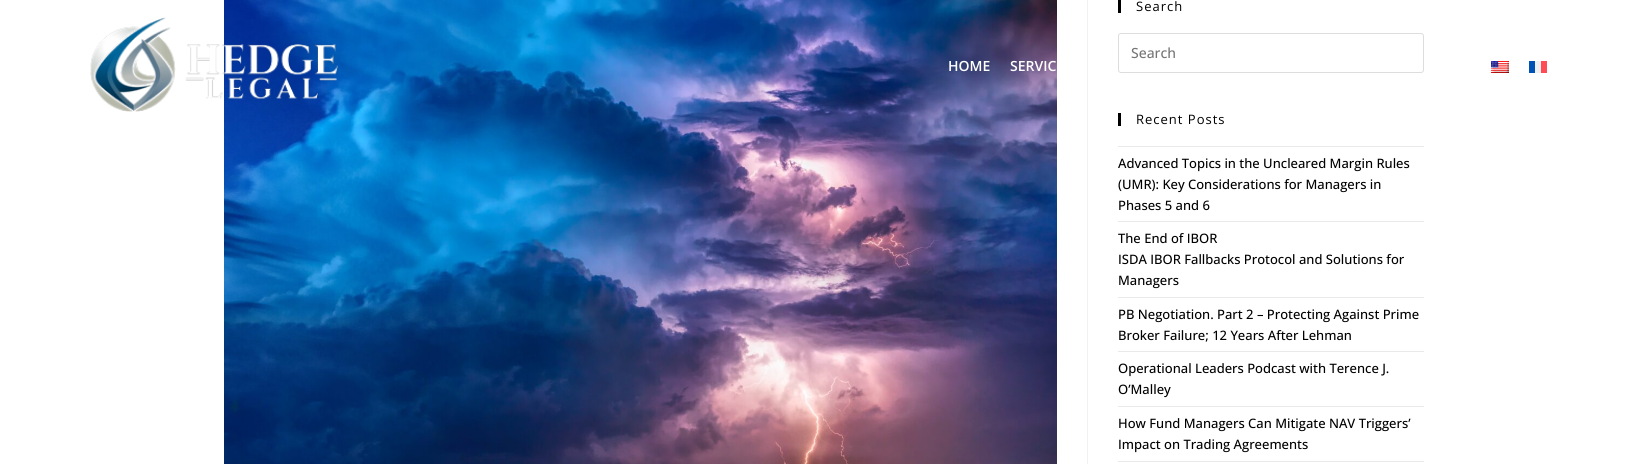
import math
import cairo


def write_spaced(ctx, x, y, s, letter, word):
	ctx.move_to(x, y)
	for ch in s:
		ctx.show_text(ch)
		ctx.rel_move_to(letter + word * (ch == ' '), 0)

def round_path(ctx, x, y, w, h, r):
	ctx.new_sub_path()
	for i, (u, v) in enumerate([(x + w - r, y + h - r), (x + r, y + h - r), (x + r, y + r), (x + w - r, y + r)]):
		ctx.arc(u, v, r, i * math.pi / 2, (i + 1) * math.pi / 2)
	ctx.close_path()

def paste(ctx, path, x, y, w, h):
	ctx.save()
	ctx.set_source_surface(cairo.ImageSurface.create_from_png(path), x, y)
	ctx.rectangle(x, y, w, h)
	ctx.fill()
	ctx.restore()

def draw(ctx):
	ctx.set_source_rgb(1, 1, 1)
	ctx.paint()
	paste(ctx, 'media/3.png', 224, 0, 833, 464)
	paste(ctx, 'media/1.png', 90, 17, 249, 95)
	ctx.select_font_face('Open Sans SemiBold')
	ctx.set_font_size(14)
	ctx.set_source_rgb(1, 1, 1)
	ctx.move_to(948, 71)
	ctx.show_text('HOME')
	ctx.move_to(1010, 71)
	ctx.show_text('SERVIC')
	paste(ctx, 'media/2.png', 1491, 61, 18, 12)
	ctx.set_source_rgb(0, 0.322, 0.706)
	ctx.rectangle(1529, 61, 6, 12)
	ctx.fill()
	ctx.set_source_rgb(0.941, 0.941, 0.941)
	ctx.rectangle(1535, 61, 6, 12)
	ctx.fill()
	ctx.set_source_rgb(1, 0.294, 0.333)
	ctx.rectangle(1541, 61, 6, 12)
	ctx.fill()
	ctx.set_source_rgb(0.945, 0.945, 0.945)
	ctx.rectangle(1087, 0, 1, 464)
	ctx.fill()
	ctx.set_source_rgb(0, 0, 0)
	ctx.rectangle(1118, 0, 3, 13)
	ctx.fill()
	ctx.select_font_face('Open Sans')
	ctx.set_font_size(13)
	write_spaced(ctx, 1136, 11, 'Search', 1, 0)
	round_path(ctx, 1118.5, 33.5, 305, 39, 2.5)
	ctx.set_source_rgb(0.867, 0.867, 0.867)
	ctx.set_line_width(1)
	ctx.stroke()
	ctx.select_font_face('Open Sans Medium')
	ctx.set_font_size(14)
	ctx.set_source_rgb(0.459, 0.459, 0.459)
	ctx.move_to(1131, 58)
	ctx.show_text('Search')
	ctx.set_source_rgb(0, 0, 0)
	ctx.rectangle(1118, 113, 3, 13)
	ctx.fill()
	ctx.select_font_face('Open Sans')
	ctx.set_font_size(13)
	write_spaced(ctx, 1136, 124, 'Recent Posts', 1, 0)
	ctx.set_source_rgb(0.914, 0.914, 0.914)
	ctx.rectangle(1118, 146, 306, 1)
	ctx.fill()
	ctx.rectangle(1118, 221, 306, 1)
	ctx.fill()
	ctx.select_font_face('Open Sans Medium')
	ctx.set_source_rgb(0, 0, 0)
	for x, y, s in [
		(1118, 168, 'Advanced Topics in the Uncleared Margin Rules'),
		(1118, 189, '(UMR): Key Considerations for Managers in'),
		(1118, 210, 'Phases 5 and 6'),
	]:
		ctx.move_to(x, y)
		ctx.show_text(s)
	ctx.set_source_rgb(0.914, 0.914, 0.914)
	ctx.rectangle(1118, 297, 306, 1)
	ctx.fill()
	ctx.set_source_rgb(0, 0, 0)
	for x, y, s in [
		(1118, 243, 'The End of IBOR'),
		(1118, 264, 'ISDA IBOR Fallbacks Protocol and Solutions for'),
		(1118, 285, 'Managers'),
	]:
		ctx.move_to(x, y)
		ctx.show_text(s)
	ctx.set_source_rgb(0.914, 0.914, 0.914)
	ctx.rectangle(1118, 351, 306, 1)
	ctx.fill()
	ctx.set_source_rgb(0, 0, 0)
	ctx.move_to(1118, 319)
	ctx.show_text('PB Negotiation. Part 2 – Protecting Against Prime')
	ctx.move_to(1118, 340)
	ctx.show_text('Broker Failure; 12 Years After Lehman')
	ctx.set_source_rgb(0.914, 0.914, 0.914)
	ctx.rectangle(1118, 406, 306, 1)
	ctx.fill()
	ctx.set_source_rgb(0, 0, 0)
	ctx.move_to(1118, 373)
	ctx.show_text('Operational Leaders Podcast with Terence J.')
	ctx.move_to(1118, 394)
	ctx.show_text('O’Malley')
	ctx.set_source_rgb(0.914, 0.914, 0.914)
	ctx.rectangle(1118, 461, 306, 1)
	ctx.fill()
	ctx.set_source_rgb(0, 0, 0)
	ctx.move_to(1118, 428)
	ctx.show_text('How Fund Managers Can Mitigate NAV Triggers’')
	ctx.move_to(1118, 449)
	ctx.show_text('Impact on Trading Agreements')


surface = cairo.ImageSurface(cairo.FORMAT_RGB24, 1647, 464)
ctx = cairo.Context(surface)
options = cairo.FontOptions()
options.set_hint_metrics(cairo.HINT_METRICS_OFF)
options.set_hint_style(cairo.HINT_STYLE_NONE)
ctx.set_font_options(options)
ctx.set_miter_limit(4)
draw(ctx)
surface.write_to_png('image.png')
